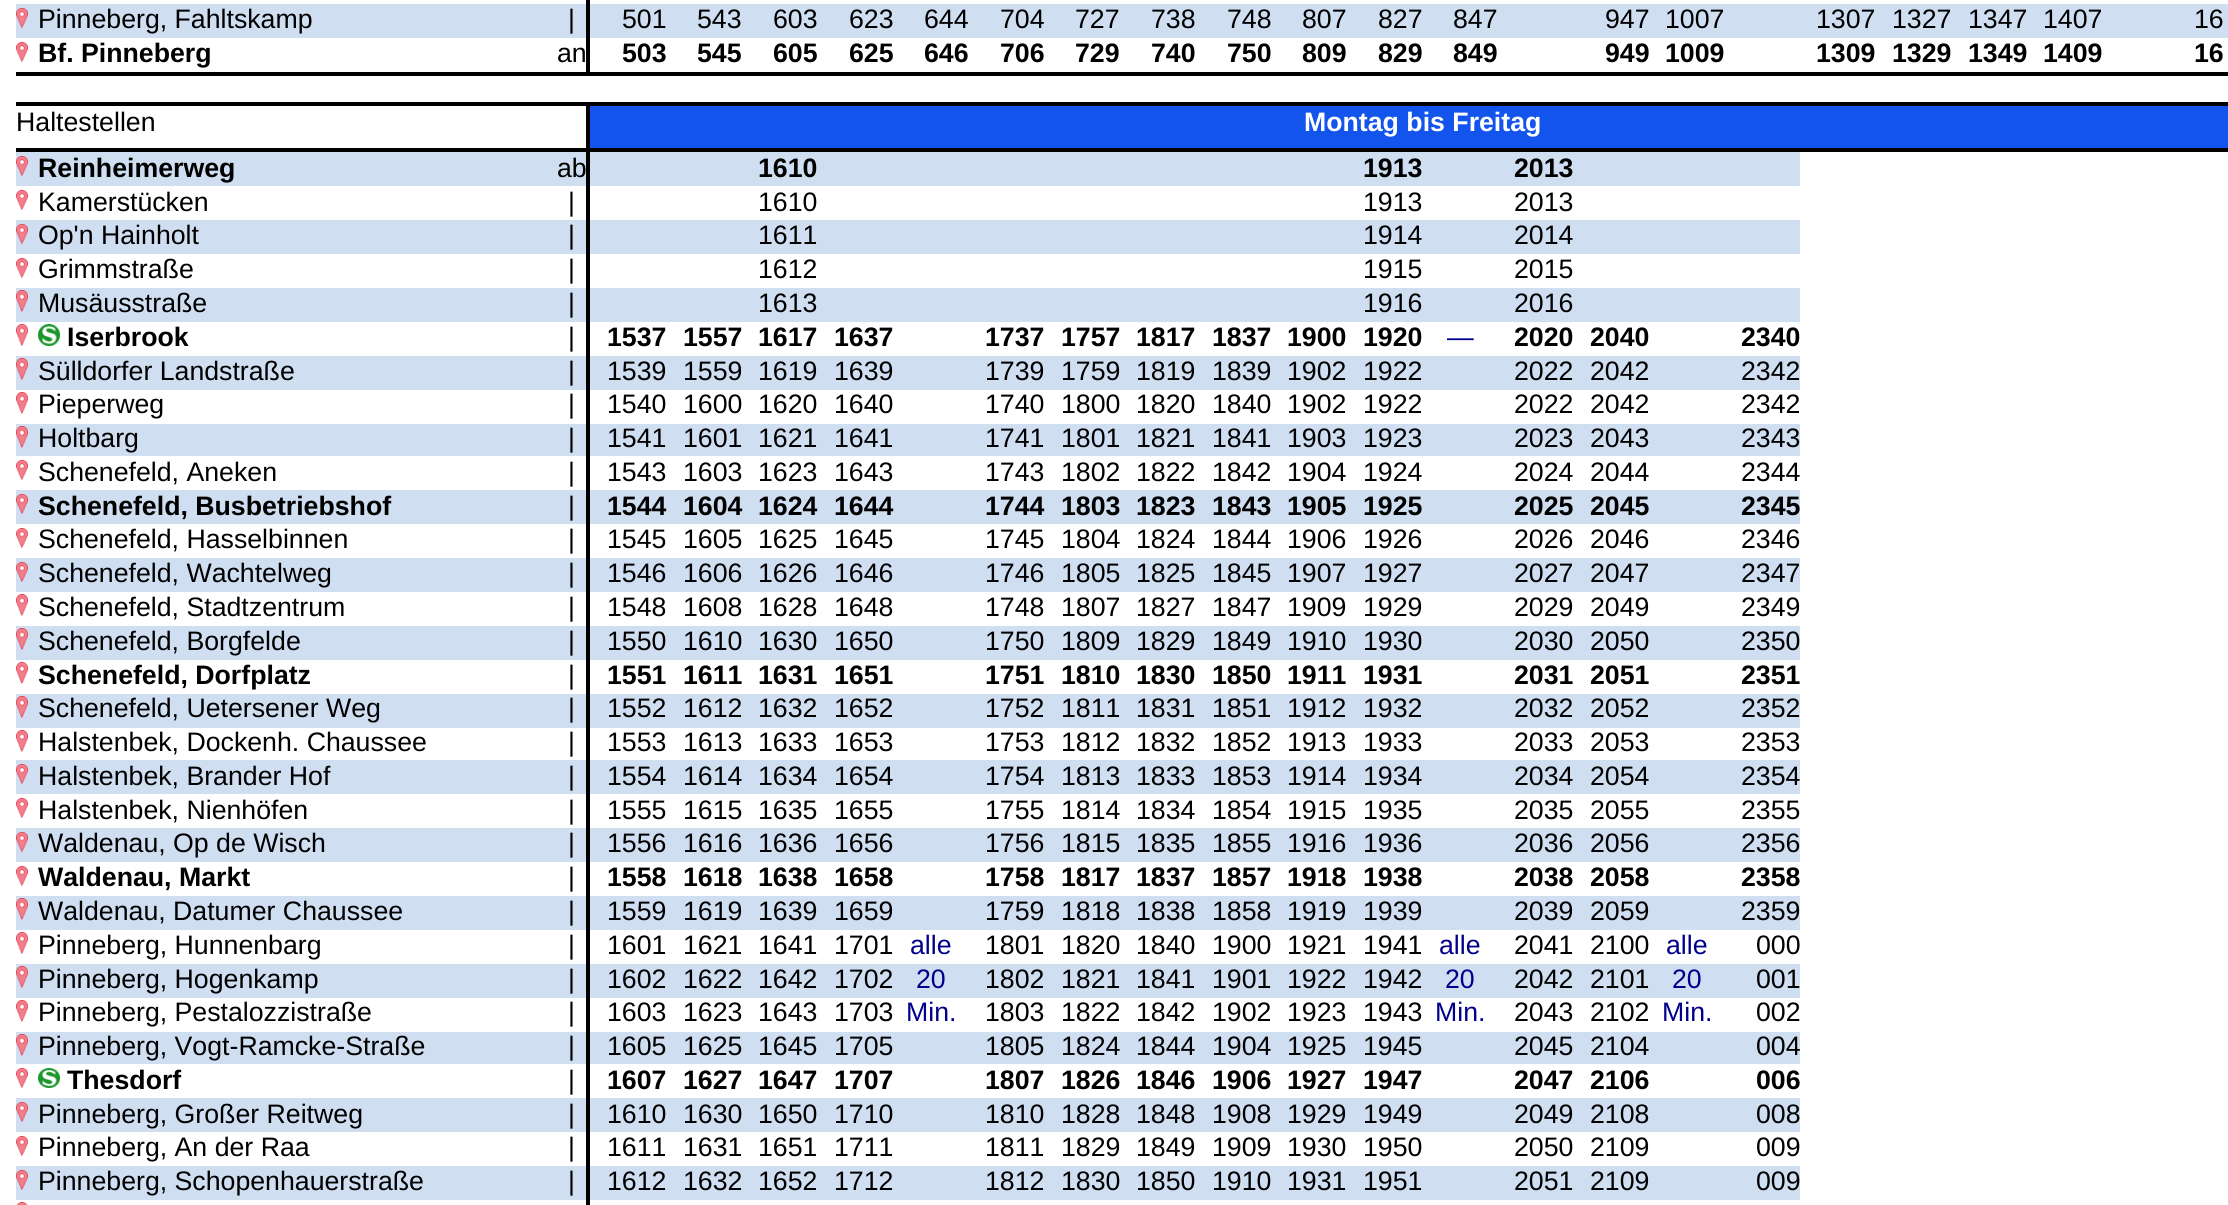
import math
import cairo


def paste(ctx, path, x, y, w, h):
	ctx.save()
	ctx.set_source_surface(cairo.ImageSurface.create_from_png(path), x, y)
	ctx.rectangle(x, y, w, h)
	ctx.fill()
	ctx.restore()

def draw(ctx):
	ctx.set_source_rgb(1, 1, 1)
	ctx.paint()
	ctx.set_source_rgb(0, 0, 0)
	ctx.rectangle(586, 0, 4, 4)
	ctx.fill()
	ctx.set_source_rgb(0.816, 0.871, 0.949)
	ctx.rectangle(16, 4, 2212, 34)
	ctx.fill()
	paste(ctx, 'media/1.png', 16, 8, 12, 20)
	ctx.select_font_face('Liberation Sans')
	ctx.set_font_size(26.7)
	ctx.set_source_rgb(0, 0, 0)
	ctx.move_to(38, 28)
	ctx.show_text('Pinneberg, Fahltskamp')
	ctx.move_to(568, 28)
	ctx.show_text('|')
	ctx.rectangle(586, 4, 4, 68)
	ctx.fill()
	for x, y, s in [
		(622, 28, '501'),
		(697, 28, '543'),
		(773, 28, '603'),
		(849, 28, '623'),
		(924, 28, '644'),
		(1000, 28, '704'),
		(1075, 28, '727'),
		(1151, 28, '738'),
		(1227, 28, '748'),
		(1302, 28, '807'),
		(1378, 28, '827'),
		(1453, 28, '847'),
		(1605, 28, '947'),
		(1665, 28, '1007'),
		(1816, 28, '1307'),
		(1892, 28, '1327'),
		(1968, 28, '1347'),
		(2043, 28, '1407'),
		(2194, 28, '16'),
	]:
		ctx.move_to(x, y)
		ctx.show_text(s)
	paste(ctx, 'media/2.png', 16, 42, 12, 20)
	ctx.select_font_face('Liberation Sans', cairo.FONT_SLANT_NORMAL, cairo.FONT_WEIGHT_BOLD)
	ctx.move_to(38, 62)
	ctx.show_text('Bf. Pinneberg')
	ctx.select_font_face('Liberation Sans')
	ctx.move_to(557, 62)
	ctx.show_text('an')
	ctx.select_font_face('Liberation Sans', cairo.FONT_SLANT_NORMAL, cairo.FONT_WEIGHT_BOLD)
	for x, y, s in [
		(622, 62, '503'),
		(697, 62, '545'),
		(773, 62, '605'),
		(849, 62, '625'),
		(924, 62, '646'),
		(1000, 62, '706'),
		(1075, 62, '729'),
		(1151, 62, '740'),
		(1227, 62, '750'),
		(1302, 62, '809'),
		(1378, 62, '829'),
		(1453, 62, '849'),
		(1605, 62, '949'),
		(1665, 62, '1009'),
		(1816, 62, '1309'),
		(1892, 62, '1329'),
		(1968, 62, '1349'),
		(2043, 62, '1409'),
		(2194, 62, '16'),
	]:
		ctx.move_to(x, y)
		ctx.show_text(s)
	ctx.rectangle(16, 72, 2212, 4)
	ctx.fill()
	ctx.rectangle(16, 102, 2212, 4)
	ctx.fill()
	ctx.select_font_face('Liberation Sans')
	ctx.move_to(16, 131)
	ctx.show_text('Haltestellen')
	ctx.rectangle(586, 106, 4, 42)
	ctx.fill()
	ctx.set_source_rgb(0.078, 0.333, 0.922)
	ctx.rectangle(590, 106, 1638, 42)
	ctx.fill()
	ctx.select_font_face('Liberation Sans', cairo.FONT_SLANT_NORMAL, cairo.FONT_WEIGHT_BOLD)
	ctx.set_source_rgb(1, 1, 1)
	ctx.move_to(1304, 131)
	ctx.show_text('Montag bis Freitag')
	ctx.set_source_rgb(0, 0, 0)
	ctx.rectangle(16, 148, 2212, 4)
	ctx.fill()
	ctx.set_source_rgb(0.816, 0.871, 0.949)
	ctx.rectangle(16, 152, 1784, 34)
	ctx.fill()
	paste(ctx, 'media/1.png', 16, 156, 12, 20)
	ctx.set_source_rgb(0, 0, 0)
	ctx.move_to(38, 177)
	ctx.show_text('Reinheimerweg')
	ctx.select_font_face('Liberation Sans')
	ctx.move_to(557, 177)
	ctx.show_text('ab')
	ctx.rectangle(586, 152, 4, 68)
	ctx.fill()
	ctx.select_font_face('Liberation Sans', cairo.FONT_SLANT_NORMAL, cairo.FONT_WEIGHT_BOLD)
	for x, y, s in [
		(758, 177, '1610'),
		(1363, 177, '1913'),
		(1514, 177, '2013'),
	]:
		ctx.move_to(x, y)
		ctx.show_text(s)
	paste(ctx, 'media/2.png', 16, 190, 12, 20)
	ctx.select_font_face('Liberation Sans')
	for x, y, s in [
		(38, 211, 'Kamerstücken'),
		(568, 211, '|'),
		(758, 211, '1610'),
		(1363, 211, '1913'),
		(1514, 211, '2013'),
	]:
		ctx.move_to(x, y)
		ctx.show_text(s)
	ctx.set_source_rgb(0.816, 0.871, 0.949)
	ctx.rectangle(16, 220, 1784, 34)
	ctx.fill()
	paste(ctx, 'media/1.png', 16, 224, 12, 20)
	ctx.set_source_rgb(0, 0, 0)
	ctx.move_to(38, 244)
	ctx.show_text('Op\'n Hainholt')
	ctx.move_to(568, 244)
	ctx.show_text('|')
	ctx.rectangle(586, 220, 4, 68)
	ctx.fill()
	for x, y, s in [
		(758, 244, '1611'),
		(1363, 244, '1914'),
		(1514, 244, '2014'),
	]:
		ctx.move_to(x, y)
		ctx.show_text(s)
	paste(ctx, 'media/3.png', 16, 258, 12, 20)
	for x, y, s in [
		(38, 278, 'Grimmstraße'),
		(568, 278, '|'),
		(758, 278, '1612'),
		(1363, 278, '1915'),
		(1514, 278, '2015'),
	]:
		ctx.move_to(x, y)
		ctx.show_text(s)
	ctx.set_source_rgb(0.816, 0.871, 0.949)
	ctx.rectangle(16, 288, 1784, 34)
	ctx.fill()
	paste(ctx, 'media/4.png', 16, 290, 12, 22)
	ctx.set_source_rgb(0, 0, 0)
	ctx.move_to(38, 312)
	ctx.show_text('Musäusstraße')
	ctx.move_to(568, 312)
	ctx.show_text('|')
	ctx.rectangle(586, 288, 4, 68)
	ctx.fill()
	for x, y, s in [
		(758, 312, '1613'),
		(1363, 312, '1916'),
		(1514, 312, '2016'),
	]:
		ctx.move_to(x, y)
		ctx.show_text(s)
	paste(ctx, 'media/5.png', 16, 324, 12, 22)
	paste(ctx, 'media/6.png', 38, 324, 22, 22)
	ctx.select_font_face('Liberation Sans', cairo.FONT_SLANT_NORMAL, cairo.FONT_WEIGHT_BOLD)
	ctx.move_to(67, 346)
	ctx.show_text('Iserbrook')
	ctx.select_font_face('Liberation Sans')
	ctx.move_to(568, 346)
	ctx.show_text('|')
	ctx.select_font_face('Liberation Sans', cairo.FONT_SLANT_NORMAL, cairo.FONT_WEIGHT_BOLD)
	for x, y, s in [
		(607, 346, '1537'),
		(683, 346, '1557'),
		(758, 346, '1617'),
		(834, 346, '1637'),
		(985, 346, '1737'),
		(1061, 346, '1757'),
		(1136, 346, '1817'),
		(1212, 346, '1837'),
		(1287, 346, '1900'),
		(1363, 346, '1920'),
	]:
		ctx.move_to(x, y)
		ctx.show_text(s)
	ctx.select_font_face('Liberation Sans')
	ctx.set_source_rgb(0, 0, 0.545)
	ctx.move_to(1447, 346)
	ctx.show_text('—')
	ctx.select_font_face('Liberation Sans', cairo.FONT_SLANT_NORMAL, cairo.FONT_WEIGHT_BOLD)
	ctx.set_source_rgb(0, 0, 0)
	for x, y, s in [
		(1514, 346, '2020'),
		(1590, 346, '2040'),
		(1741, 346, '2340'),
	]:
		ctx.move_to(x, y)
		ctx.show_text(s)
	ctx.set_source_rgb(0.816, 0.871, 0.949)
	ctx.rectangle(16, 356, 1784, 34)
	ctx.fill()
	paste(ctx, 'media/4.png', 16, 358, 12, 22)
	ctx.select_font_face('Liberation Sans')
	ctx.set_source_rgb(0, 0, 0)
	ctx.move_to(38, 380)
	ctx.show_text('Sülldorfer Landstraße')
	ctx.move_to(568, 380)
	ctx.show_text('|')
	ctx.rectangle(586, 356, 4, 68)
	ctx.fill()
	for x, y, s in [
		(607, 380, '1539'),
		(683, 380, '1559'),
		(758, 380, '1619'),
		(834, 380, '1639'),
		(985, 380, '1739'),
		(1061, 380, '1759'),
		(1136, 380, '1819'),
		(1212, 380, '1839'),
		(1287, 380, '1902'),
		(1363, 380, '1922'),
		(1514, 380, '2022'),
		(1590, 380, '2042'),
		(1741, 380, '2342'),
	]:
		ctx.move_to(x, y)
		ctx.show_text(s)
	paste(ctx, 'media/5.png', 16, 392, 12, 22)
	for x, y, s in [
		(38, 413, 'Pieperweg'),
		(568, 413, '|'),
		(607, 413, '1540'),
		(683, 413, '1600'),
		(758, 413, '1620'),
		(834, 413, '1640'),
		(985, 413, '1740'),
		(1061, 413, '1800'),
		(1136, 413, '1820'),
		(1212, 413, '1840'),
		(1287, 413, '1902'),
		(1363, 413, '1922'),
		(1514, 413, '2022'),
		(1590, 413, '2042'),
		(1741, 413, '2342'),
	]:
		ctx.move_to(x, y)
		ctx.show_text(s)
	ctx.set_source_rgb(0.816, 0.871, 0.949)
	ctx.rectangle(16, 424, 1784, 32)
	ctx.fill()
	paste(ctx, 'media/4.png', 16, 426, 12, 22)
	ctx.set_source_rgb(0, 0, 0)
	ctx.move_to(38, 447)
	ctx.show_text('Holtbarg')
	ctx.move_to(568, 447)
	ctx.show_text('|')
	ctx.rectangle(586, 424, 4, 66)
	ctx.fill()
	for x, y, s in [
		(607, 447, '1541'),
		(683, 447, '1601'),
		(758, 447, '1621'),
		(834, 447, '1641'),
		(985, 447, '1741'),
		(1061, 447, '1801'),
		(1136, 447, '1821'),
		(1212, 447, '1841'),
		(1287, 447, '1903'),
		(1363, 447, '1923'),
		(1514, 447, '2023'),
		(1590, 447, '2043'),
		(1741, 447, '2343'),
	]:
		ctx.move_to(x, y)
		ctx.show_text(s)
	paste(ctx, 'media/2.png', 16, 460, 12, 20)
	for x, y, s in [
		(38, 481, 'Schenefeld, Aneken'),
		(568, 481, '|'),
		(607, 481, '1543'),
		(683, 481, '1603'),
		(758, 481, '1623'),
		(834, 481, '1643'),
		(985, 481, '1743'),
		(1061, 481, '1802'),
		(1136, 481, '1822'),
		(1212, 481, '1842'),
		(1287, 481, '1904'),
		(1363, 481, '1924'),
		(1514, 481, '2024'),
		(1590, 481, '2044'),
		(1741, 481, '2344'),
	]:
		ctx.move_to(x, y)
		ctx.show_text(s)
	ctx.set_source_rgb(0.816, 0.871, 0.949)
	ctx.rectangle(16, 490, 1784, 34)
	ctx.fill()
	paste(ctx, 'media/1.png', 16, 494, 12, 20)
	ctx.select_font_face('Liberation Sans', cairo.FONT_SLANT_NORMAL, cairo.FONT_WEIGHT_BOLD)
	ctx.set_source_rgb(0, 0, 0)
	ctx.move_to(38, 515)
	ctx.show_text('Schenefeld, Busbetriebshof')
	ctx.select_font_face('Liberation Sans')
	ctx.move_to(568, 515)
	ctx.show_text('|')
	ctx.rectangle(586, 490, 4, 68)
	ctx.fill()
	ctx.select_font_face('Liberation Sans', cairo.FONT_SLANT_NORMAL, cairo.FONT_WEIGHT_BOLD)
	for x, y, s in [
		(607, 515, '1544'),
		(683, 515, '1604'),
		(758, 515, '1624'),
		(834, 515, '1644'),
		(985, 515, '1744'),
		(1061, 515, '1803'),
		(1136, 515, '1823'),
		(1212, 515, '1843'),
		(1287, 515, '1905'),
		(1363, 515, '1925'),
		(1514, 515, '2025'),
		(1590, 515, '2045'),
		(1741, 515, '2345'),
	]:
		ctx.move_to(x, y)
		ctx.show_text(s)
	paste(ctx, 'media/2.png', 16, 528, 12, 20)
	ctx.select_font_face('Liberation Sans')
	for x, y, s in [
		(38, 548, 'Schenefeld, Hasselbinnen'),
		(568, 548, '|'),
		(607, 548, '1545'),
		(683, 548, '1605'),
		(758, 548, '1625'),
		(834, 548, '1645'),
		(985, 548, '1745'),
		(1061, 548, '1804'),
		(1136, 548, '1824'),
		(1212, 548, '1844'),
		(1287, 548, '1906'),
		(1363, 548, '1926'),
		(1514, 548, '2026'),
		(1590, 548, '2046'),
		(1741, 548, '2346'),
	]:
		ctx.move_to(x, y)
		ctx.show_text(s)
	ctx.set_source_rgb(0.816, 0.871, 0.949)
	ctx.rectangle(16, 558, 1784, 34)
	ctx.fill()
	paste(ctx, 'media/1.png', 16, 562, 12, 20)
	ctx.set_source_rgb(0, 0, 0)
	ctx.move_to(38, 582)
	ctx.show_text('Schenefeld, Wachtelweg')
	ctx.move_to(568, 582)
	ctx.show_text('|')
	ctx.rectangle(586, 558, 4, 68)
	ctx.fill()
	for x, y, s in [
		(607, 582, '1546'),
		(683, 582, '1606'),
		(758, 582, '1626'),
		(834, 582, '1646'),
		(985, 582, '1746'),
		(1061, 582, '1805'),
		(1136, 582, '1825'),
		(1212, 582, '1845'),
		(1287, 582, '1907'),
		(1363, 582, '1927'),
		(1514, 582, '2027'),
		(1590, 582, '2047'),
		(1741, 582, '2347'),
	]:
		ctx.move_to(x, y)
		ctx.show_text(s)
	paste(ctx, 'media/5.png', 16, 594, 12, 22)
	for x, y, s in [
		(38, 616, 'Schenefeld, Stadtzentrum'),
		(568, 616, '|'),
		(607, 616, '1548'),
		(683, 616, '1608'),
		(758, 616, '1628'),
		(834, 616, '1648'),
		(985, 616, '1748'),
		(1061, 616, '1807'),
		(1136, 616, '1827'),
		(1212, 616, '1847'),
		(1287, 616, '1909'),
		(1363, 616, '1929'),
		(1514, 616, '2029'),
		(1590, 616, '2049'),
		(1741, 616, '2349'),
	]:
		ctx.move_to(x, y)
		ctx.show_text(s)
	ctx.set_source_rgb(0.816, 0.871, 0.949)
	ctx.rectangle(16, 626, 1784, 34)
	ctx.fill()
	paste(ctx, 'media/4.png', 16, 628, 12, 22)
	ctx.set_source_rgb(0, 0, 0)
	ctx.move_to(38, 650)
	ctx.show_text('Schenefeld, Borgfelde')
	ctx.move_to(568, 650)
	ctx.show_text('|')
	ctx.rectangle(586, 626, 4, 68)
	ctx.fill()
	for x, y, s in [
		(607, 650, '1550'),
		(683, 650, '1610'),
		(758, 650, '1630'),
		(834, 650, '1650'),
		(985, 650, '1750'),
		(1061, 650, '1809'),
		(1136, 650, '1829'),
		(1212, 650, '1849'),
		(1287, 650, '1910'),
		(1363, 650, '1930'),
		(1514, 650, '2030'),
		(1590, 650, '2050'),
		(1741, 650, '2350'),
	]:
		ctx.move_to(x, y)
		ctx.show_text(s)
	paste(ctx, 'media/5.png', 16, 662, 12, 22)
	ctx.select_font_face('Liberation Sans', cairo.FONT_SLANT_NORMAL, cairo.FONT_WEIGHT_BOLD)
	ctx.move_to(38, 684)
	ctx.show_text('Schenefeld, Dorfplatz')
	ctx.select_font_face('Liberation Sans')
	ctx.move_to(568, 684)
	ctx.show_text('|')
	ctx.select_font_face('Liberation Sans', cairo.FONT_SLANT_NORMAL, cairo.FONT_WEIGHT_BOLD)
	for x, y, s in [
		(607, 684, '1551'),
		(683, 684, '1611'),
		(758, 684, '1631'),
		(834, 684, '1651'),
		(985, 684, '1751'),
		(1061, 684, '1810'),
		(1136, 684, '1830'),
		(1212, 684, '1850'),
		(1287, 684, '1911'),
		(1363, 684, '1931'),
		(1514, 684, '2031'),
		(1590, 684, '2051'),
		(1741, 684, '2351'),
	]:
		ctx.move_to(x, y)
		ctx.show_text(s)
	ctx.set_source_rgb(0.816, 0.871, 0.949)
	ctx.rectangle(16, 694, 1784, 34)
	ctx.fill()
	paste(ctx, 'media/4.png', 16, 696, 12, 22)
	ctx.select_font_face('Liberation Sans')
	ctx.set_source_rgb(0, 0, 0)
	ctx.move_to(38, 717)
	ctx.show_text('Schenefeld, Uetersener Weg')
	ctx.move_to(568, 717)
	ctx.show_text('|')
	ctx.rectangle(586, 694, 4, 66)
	ctx.fill()
	for x, y, s in [
		(607, 717, '1552'),
		(683, 717, '1612'),
		(758, 717, '1632'),
		(834, 717, '1652'),
		(985, 717, '1752'),
		(1061, 717, '1811'),
		(1136, 717, '1831'),
		(1212, 717, '1851'),
		(1287, 717, '1912'),
		(1363, 717, '1932'),
		(1514, 717, '2032'),
		(1590, 717, '2052'),
		(1741, 717, '2352'),
	]:
		ctx.move_to(x, y)
		ctx.show_text(s)
	paste(ctx, 'media/5.png', 16, 730, 12, 22)
	for x, y, s in [
		(38, 751, 'Halstenbek, Dockenh. Chaussee'),
		(568, 751, '|'),
		(607, 751, '1553'),
		(683, 751, '1613'),
		(758, 751, '1633'),
		(834, 751, '1653'),
		(985, 751, '1753'),
		(1061, 751, '1812'),
		(1136, 751, '1832'),
		(1212, 751, '1852'),
		(1287, 751, '1913'),
		(1363, 751, '1933'),
		(1514, 751, '2033'),
		(1590, 751, '2053'),
		(1741, 751, '2353'),
	]:
		ctx.move_to(x, y)
		ctx.show_text(s)
	ctx.set_source_rgb(0.816, 0.871, 0.949)
	ctx.rectangle(16, 760, 1784, 34)
	ctx.fill()
	paste(ctx, 'media/1.png', 16, 764, 12, 20)
	ctx.set_source_rgb(0, 0, 0)
	ctx.move_to(38, 785)
	ctx.show_text('Halstenbek, Brander Hof')
	ctx.move_to(568, 785)
	ctx.show_text('|')
	ctx.rectangle(586, 760, 4, 68)
	ctx.fill()
	for x, y, s in [
		(607, 785, '1554'),
		(683, 785, '1614'),
		(758, 785, '1634'),
		(834, 785, '1654'),
		(985, 785, '1754'),
		(1061, 785, '1813'),
		(1136, 785, '1833'),
		(1212, 785, '1853'),
		(1287, 785, '1914'),
		(1363, 785, '1934'),
		(1514, 785, '2034'),
		(1590, 785, '2054'),
		(1741, 785, '2354'),
	]:
		ctx.move_to(x, y)
		ctx.show_text(s)
	paste(ctx, 'media/2.png', 16, 798, 12, 20)
	for x, y, s in [
		(38, 819, 'Halstenbek, Nienhöfen'),
		(568, 819, '|'),
		(607, 819, '1555'),
		(683, 819, '1615'),
		(758, 819, '1635'),
		(834, 819, '1655'),
		(985, 819, '1755'),
		(1061, 819, '1814'),
		(1136, 819, '1834'),
		(1212, 819, '1854'),
		(1287, 819, '1915'),
		(1363, 819, '1935'),
		(1514, 819, '2035'),
		(1590, 819, '2055'),
		(1741, 819, '2355'),
	]:
		ctx.move_to(x, y)
		ctx.show_text(s)
	ctx.set_source_rgb(0.816, 0.871, 0.949)
	ctx.rectangle(16, 828, 1784, 34)
	ctx.fill()
	paste(ctx, 'media/1.png', 16, 832, 12, 20)
	ctx.set_source_rgb(0, 0, 0)
	ctx.move_to(38, 852)
	ctx.show_text('Waldenau, Op de Wisch')
	ctx.move_to(568, 852)
	ctx.show_text('|')
	ctx.rectangle(586, 828, 4, 68)
	ctx.fill()
	for x, y, s in [
		(607, 852, '1556'),
		(683, 852, '1616'),
		(758, 852, '1636'),
		(834, 852, '1656'),
		(985, 852, '1756'),
		(1061, 852, '1815'),
		(1136, 852, '1835'),
		(1212, 852, '1855'),
		(1287, 852, '1916'),
		(1363, 852, '1936'),
		(1514, 852, '2036'),
		(1590, 852, '2056'),
		(1741, 852, '2356'),
	]:
		ctx.move_to(x, y)
		ctx.show_text(s)
	paste(ctx, 'media/2.png', 16, 866, 12, 20)
	ctx.select_font_face('Liberation Sans', cairo.FONT_SLANT_NORMAL, cairo.FONT_WEIGHT_BOLD)
	ctx.move_to(38, 886)
	ctx.show_text('Waldenau, Markt')
	ctx.select_font_face('Liberation Sans')
	ctx.move_to(568, 886)
	ctx.show_text('|')
	ctx.select_font_face('Liberation Sans', cairo.FONT_SLANT_NORMAL, cairo.FONT_WEIGHT_BOLD)
	for x, y, s in [
		(607, 886, '1558'),
		(683, 886, '1618'),
		(758, 886, '1638'),
		(834, 886, '1658'),
		(985, 886, '1758'),
		(1061, 886, '1817'),
		(1136, 886, '1837'),
		(1212, 886, '1857'),
		(1287, 886, '1918'),
		(1363, 886, '1938'),
		(1514, 886, '2038'),
		(1590, 886, '2058'),
		(1741, 886, '2358'),
	]:
		ctx.move_to(x, y)
		ctx.show_text(s)
	ctx.set_source_rgb(0.816, 0.871, 0.949)
	ctx.rectangle(16, 896, 1784, 34)
	ctx.fill()
	paste(ctx, 'media/4.png', 16, 898, 12, 22)
	ctx.select_font_face('Liberation Sans')
	ctx.set_source_rgb(0, 0, 0)
	ctx.move_to(38, 920)
	ctx.show_text('Waldenau, Datumer Chaussee')
	ctx.move_to(568, 920)
	ctx.show_text('|')
	ctx.rectangle(586, 896, 4, 68)
	ctx.fill()
	for x, y, s in [
		(607, 920, '1559'),
		(683, 920, '1619'),
		(758, 920, '1639'),
		(834, 920, '1659'),
		(985, 920, '1759'),
		(1061, 920, '1818'),
		(1136, 920, '1838'),
		(1212, 920, '1858'),
		(1287, 920, '1919'),
		(1363, 920, '1939'),
		(1514, 920, '2039'),
		(1590, 920, '2059'),
		(1741, 920, '2359'),
	]:
		ctx.move_to(x, y)
		ctx.show_text(s)
	paste(ctx, 'media/5.png', 16, 932, 12, 22)
	for x, y, s in [
		(38, 954, 'Pinneberg, Hunnenbarg'),
		(568, 954, '|'),
		(607, 954, '1601'),
		(683, 954, '1621'),
		(758, 954, '1641'),
		(834, 954, '1701'),
	]:
		ctx.move_to(x, y)
		ctx.show_text(s)
	ctx.set_source_rgb(0, 0, 0.545)
	ctx.move_to(910, 954)
	ctx.show_text('alle')
	ctx.set_source_rgb(0, 0, 0)
	for x, y, s in [
		(985, 954, '1801'),
		(1061, 954, '1820'),
		(1136, 954, '1840'),
		(1212, 954, '1900'),
		(1287, 954, '1921'),
		(1363, 954, '1941'),
	]:
		ctx.move_to(x, y)
		ctx.show_text(s)
	ctx.set_source_rgb(0, 0, 0.545)
	ctx.move_to(1439, 954)
	ctx.show_text('alle')
	ctx.set_source_rgb(0, 0, 0)
	ctx.move_to(1514, 954)
	ctx.show_text('2041')
	ctx.move_to(1590, 954)
	ctx.show_text('2100')
	ctx.set_source_rgb(0, 0, 0.545)
	ctx.move_to(1666, 954)
	ctx.show_text('alle')
	ctx.set_source_rgb(0, 0, 0)
	ctx.move_to(1756, 954)
	ctx.show_text('000')
	ctx.set_source_rgb(0.816, 0.871, 0.949)
	ctx.rectangle(16, 964, 1784, 34)
	ctx.fill()
	paste(ctx, 'media/4.png', 16, 966, 12, 22)
	ctx.set_source_rgb(0, 0, 0)
	ctx.move_to(38, 988)
	ctx.show_text('Pinneberg, Hogenkamp')
	ctx.move_to(568, 988)
	ctx.show_text('|')
	ctx.rectangle(586, 964, 4, 68)
	ctx.fill()
	for x, y, s in [
		(607, 988, '1602'),
		(683, 988, '1622'),
		(758, 988, '1642'),
		(834, 988, '1702'),
	]:
		ctx.move_to(x, y)
		ctx.show_text(s)
	ctx.set_source_rgb(0, 0, 0.545)
	ctx.move_to(916, 988)
	ctx.show_text('20')
	ctx.set_source_rgb(0, 0, 0)
	for x, y, s in [
		(985, 988, '1802'),
		(1061, 988, '1821'),
		(1136, 988, '1841'),
		(1212, 988, '1901'),
		(1287, 988, '1922'),
		(1363, 988, '1942'),
	]:
		ctx.move_to(x, y)
		ctx.show_text(s)
	ctx.set_source_rgb(0, 0, 0.545)
	ctx.move_to(1445, 988)
	ctx.show_text('20')
	ctx.set_source_rgb(0, 0, 0)
	ctx.move_to(1514, 988)
	ctx.show_text('2042')
	ctx.move_to(1590, 988)
	ctx.show_text('2101')
	ctx.set_source_rgb(0, 0, 0.545)
	ctx.move_to(1672, 988)
	ctx.show_text('20')
	ctx.set_source_rgb(0, 0, 0)
	ctx.move_to(1756, 988)
	ctx.show_text('001')
	paste(ctx, 'media/5.png', 16, 1000, 12, 22)
	for x, y, s in [
		(38, 1021, 'Pinneberg, Pestalozzistraße'),
		(568, 1021, '|'),
		(607, 1021, '1603'),
		(683, 1021, '1623'),
		(758, 1021, '1643'),
		(834, 1021, '1703'),
	]:
		ctx.move_to(x, y)
		ctx.show_text(s)
	ctx.set_source_rgb(0, 0, 0.545)
	ctx.move_to(906, 1021)
	ctx.show_text('Min.')
	ctx.set_source_rgb(0, 0, 0)
	for x, y, s in [
		(985, 1021, '1803'),
		(1061, 1021, '1822'),
		(1136, 1021, '1842'),
		(1212, 1021, '1902'),
		(1287, 1021, '1923'),
		(1363, 1021, '1943'),
	]:
		ctx.move_to(x, y)
		ctx.show_text(s)
	ctx.set_source_rgb(0, 0, 0.545)
	ctx.move_to(1435, 1021)
	ctx.show_text('Min.')
	ctx.set_source_rgb(0, 0, 0)
	ctx.move_to(1514, 1021)
	ctx.show_text('2043')
	ctx.move_to(1590, 1021)
	ctx.show_text('2102')
	ctx.set_source_rgb(0, 0, 0.545)
	ctx.move_to(1662, 1021)
	ctx.show_text('Min.')
	ctx.set_source_rgb(0, 0, 0)
	ctx.move_to(1756, 1021)
	ctx.show_text('002')
	ctx.set_source_rgb(0.816, 0.871, 0.949)
	ctx.rectangle(16, 1032, 1784, 32)
	ctx.fill()
	paste(ctx, 'media/4.png', 16, 1034, 12, 22)
	ctx.set_source_rgb(0, 0, 0)
	ctx.move_to(38, 1055)
	ctx.show_text('Pinneberg, Vogt-Ramcke-Straße')
	ctx.move_to(568, 1055)
	ctx.show_text('|')
	ctx.rectangle(586, 1032, 4, 66)
	ctx.fill()
	for x, y, s in [
		(607, 1055, '1605'),
		(683, 1055, '1625'),
		(758, 1055, '1645'),
		(834, 1055, '1705'),
		(985, 1055, '1805'),
		(1061, 1055, '1824'),
		(1136, 1055, '1844'),
		(1212, 1055, '1904'),
		(1287, 1055, '1925'),
		(1363, 1055, '1945'),
		(1514, 1055, '2045'),
		(1590, 1055, '2104'),
		(1756, 1055, '004'),
	]:
		ctx.move_to(x, y)
		ctx.show_text(s)
	paste(ctx, 'media/2.png', 16, 1068, 12, 20)
	paste(ctx, 'media/7.png', 38, 1068, 22, 20)
	ctx.select_font_face('Liberation Sans', cairo.FONT_SLANT_NORMAL, cairo.FONT_WEIGHT_BOLD)
	ctx.move_to(67, 1089)
	ctx.show_text('Thesdorf')
	ctx.select_font_face('Liberation Sans')
	ctx.move_to(568, 1089)
	ctx.show_text('|')
	ctx.select_font_face('Liberation Sans', cairo.FONT_SLANT_NORMAL, cairo.FONT_WEIGHT_BOLD)
	for x, y, s in [
		(607, 1089, '1607'),
		(683, 1089, '1627'),
		(758, 1089, '1647'),
		(834, 1089, '1707'),
		(985, 1089, '1807'),
		(1061, 1089, '1826'),
		(1136, 1089, '1846'),
		(1212, 1089, '1906'),
		(1287, 1089, '1927'),
		(1363, 1089, '1947'),
		(1514, 1089, '2047'),
		(1590, 1089, '2106'),
		(1756, 1089, '006'),
	]:
		ctx.move_to(x, y)
		ctx.show_text(s)
	ctx.set_source_rgb(0.816, 0.871, 0.949)
	ctx.rectangle(16, 1098, 1784, 34)
	ctx.fill()
	paste(ctx, 'media/1.png', 16, 1102, 12, 20)
	ctx.select_font_face('Liberation Sans')
	ctx.set_source_rgb(0, 0, 0)
	ctx.move_to(38, 1123)
	ctx.show_text('Pinneberg, Großer Reitweg')
	ctx.move_to(568, 1123)
	ctx.show_text('|')
	ctx.rectangle(586, 1098, 4, 68)
	ctx.fill()
	for x, y, s in [
		(607, 1123, '1610'),
		(683, 1123, '1630'),
		(758, 1123, '1650'),
		(834, 1123, '1710'),
		(985, 1123, '1810'),
		(1061, 1123, '1828'),
		(1136, 1123, '1848'),
		(1212, 1123, '1908'),
		(1287, 1123, '1929'),
		(1363, 1123, '1949'),
		(1514, 1123, '2049'),
		(1590, 1123, '2108'),
		(1756, 1123, '008'),
	]:
		ctx.move_to(x, y)
		ctx.show_text(s)
	paste(ctx, 'media/2.png', 16, 1136, 12, 20)
	for x, y, s in [
		(38, 1156, 'Pinneberg, An der Raa'),
		(568, 1156, '|'),
		(607, 1156, '1611'),
		(683, 1156, '1631'),
		(758, 1156, '1651'),
		(834, 1156, '1711'),
		(985, 1156, '1811'),
		(1061, 1156, '1829'),
		(1136, 1156, '1849'),
		(1212, 1156, '1909'),
		(1287, 1156, '1930'),
		(1363, 1156, '1950'),
		(1514, 1156, '2050'),
		(1590, 1156, '2109'),
		(1756, 1156, '009'),
	]:
		ctx.move_to(x, y)
		ctx.show_text(s)
	ctx.set_source_rgb(0.816, 0.871, 0.949)
	ctx.rectangle(16, 1166, 1784, 34)
	ctx.fill()
	paste(ctx, 'media/1.png', 16, 1170, 12, 20)
	ctx.set_source_rgb(0, 0, 0)
	ctx.move_to(38, 1190)
	ctx.show_text('Pinneberg, Schopenhauerstraße')
	ctx.move_to(568, 1190)
	ctx.show_text('|')
	ctx.rectangle(586, 1166, 4, 39)
	ctx.fill()
	for x, y, s in [
		(607, 1190, '1612'),
		(683, 1190, '1632'),
		(758, 1190, '1652'),
		(834, 1190, '1712'),
		(985, 1190, '1812'),
		(1061, 1190, '1830'),
		(1136, 1190, '1850'),
		(1212, 1190, '1910'),
		(1287, 1190, '1931'),
		(1363, 1190, '1951'),
		(1514, 1190, '2051'),
		(1590, 1190, '2109'),
		(1756, 1190, '009'),
	]:
		ctx.move_to(x, y)
		ctx.show_text(s)
	paste(ctx, 'media/8.png', 16, 1202, 12, 3)


surface = cairo.ImageSurface(cairo.FORMAT_RGB24, 2228, 1205)
ctx = cairo.Context(surface)
options = cairo.FontOptions()
options.set_hint_metrics(cairo.HINT_METRICS_OFF)
options.set_hint_style(cairo.HINT_STYLE_NONE)
ctx.set_font_options(options)
ctx.set_miter_limit(4)
draw(ctx)
surface.write_to_png('image.png')
